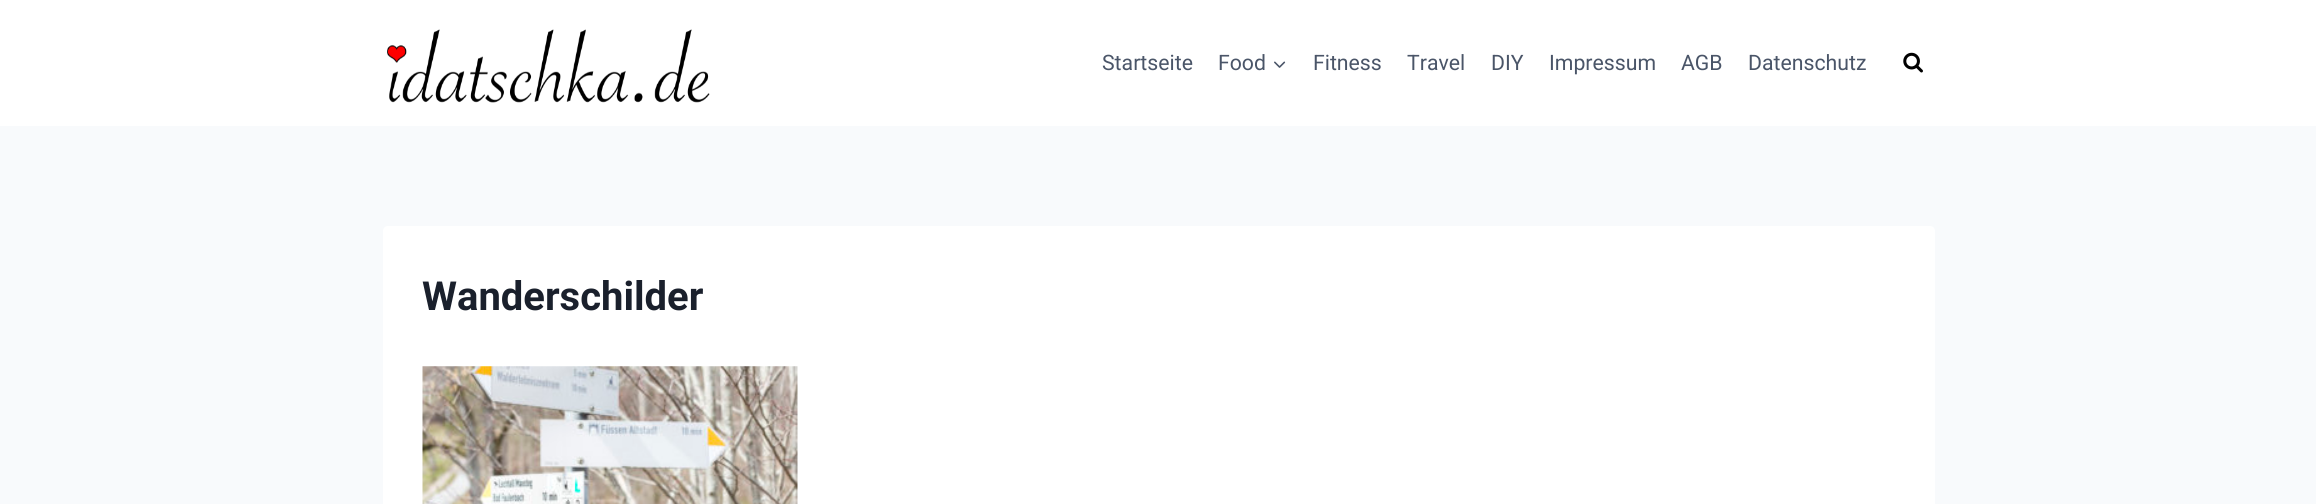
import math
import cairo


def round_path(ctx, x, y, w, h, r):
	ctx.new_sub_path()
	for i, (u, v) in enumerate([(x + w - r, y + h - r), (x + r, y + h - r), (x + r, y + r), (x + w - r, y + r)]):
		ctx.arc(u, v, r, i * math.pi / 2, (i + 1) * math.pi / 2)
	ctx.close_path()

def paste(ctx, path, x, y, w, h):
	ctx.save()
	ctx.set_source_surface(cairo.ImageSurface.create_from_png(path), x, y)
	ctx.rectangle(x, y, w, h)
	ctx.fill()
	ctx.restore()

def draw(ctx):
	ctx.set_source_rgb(0.969, 0.98, 0.988)
	ctx.paint()
	ctx.set_source_rgb(1, 1, 1)
	ctx.rectangle(0, 0, 2316, 126)
	ctx.fill()
	paste(ctx, 'media/1.png', 387, 29, 323, 74)
	ctx.select_font_face('Roboto')
	ctx.set_font_size(21.25)
	ctx.set_source_rgb(0.29, 0.333, 0.408)
	ctx.move_to(1102, 70)
	ctx.show_text('Startseite')
	ctx.move_to(1218, 70)
	ctx.show_text('Food')
	paste(ctx, 'media/2.png', 1274, 61, 12, 7)
	for x, y, s in [
		(1313, 70, 'Fitness'),
		(1407, 70, 'Travel'),
		(1491, 70, 'DIY'),
		(1549, 70, 'Impressum'),
		(1681, 70, 'AGB'),
		(1748, 70, 'Datenschutz'),
	]:
		ctx.move_to(x, y)
		ctx.show_text(s)
	paste(ctx, 'media/3.png', 1903, 52, 20, 21)
	ctx.set_source_rgb(1, 1, 1)
	round_path(ctx, 383, 226, 1552, 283, 5)
	ctx.fill()
	ctx.select_font_face('Roboto', cairo.FONT_SLANT_NORMAL, cairo.FONT_WEIGHT_BOLD)
	ctx.set_font_size(40)
	ctx.set_source_rgb(0.102, 0.125, 0.173)
	ctx.move_to(422, 310)
	ctx.show_text('Wanderschilder')
	paste(ctx, 'media/4.png', 422, 366, 376, 138)


surface = cairo.ImageSurface(cairo.FORMAT_RGB24, 2316, 504)
ctx = cairo.Context(surface)
options = cairo.FontOptions()
options.set_hint_metrics(cairo.HINT_METRICS_OFF)
options.set_hint_style(cairo.HINT_STYLE_NONE)
ctx.set_font_options(options)
ctx.set_miter_limit(4)
draw(ctx)
surface.write_to_png('image.png')
